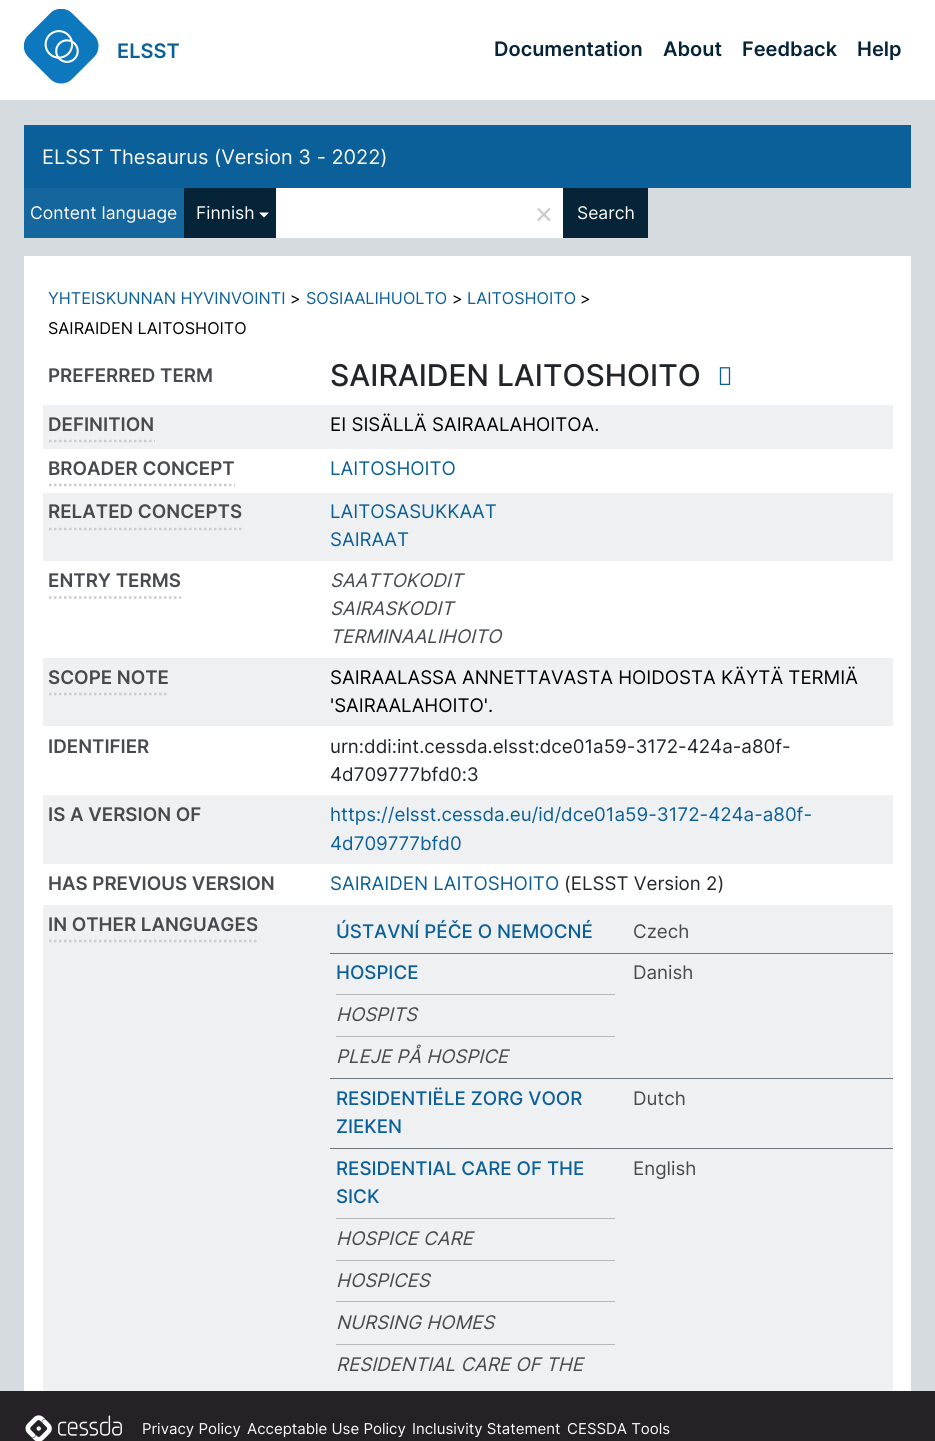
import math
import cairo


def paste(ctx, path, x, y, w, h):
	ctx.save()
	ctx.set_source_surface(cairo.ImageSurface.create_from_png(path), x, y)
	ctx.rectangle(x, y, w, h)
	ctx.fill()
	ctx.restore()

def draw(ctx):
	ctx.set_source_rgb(0.835, 0.859, 0.871)
	ctx.paint()
	ctx.set_source_rgb(1, 1, 1)
	ctx.rectangle(0, 0, 935, 100)
	ctx.fill()
	paste(ctx, 'media/1.png', 24, 9, 75, 75)
	ctx.select_font_face('Inter SemiBold')
	ctx.set_font_size(20)
	ctx.set_source_rgb(0.043, 0.376, 0.6)
	ctx.move_to(117, 58)
	ctx.show_text('ELSST')
	ctx.set_source_rgb(0.02, 0.141, 0.22)
	for x, y, s in [
		(494, 56, 'Documentation'),
		(663, 56, 'About'),
		(742, 56, 'Feedback'),
		(857, 56, 'Help'),
	]:
		ctx.move_to(x, y)
		ctx.show_text(s)
	ctx.set_source_rgb(0.043, 0.376, 0.6)
	ctx.rectangle(24, 125, 887, 63)
	ctx.fill()
	ctx.select_font_face('Inter')
	ctx.set_source_rgb(0.992, 0.992, 0.996)
	ctx.move_to(42, 164)
	ctx.show_text('ELSST Thesaurus (Version 3 - 2022)')
	ctx.set_source_rgb(0.082, 0.4, 0.612)
	ctx.rectangle(24, 188, 160, 50)
	ctx.fill()
	ctx.set_font_size(17.5)
	ctx.set_source_rgb(0.992, 0.992, 0.996)
	ctx.move_to(30, 219)
	ctx.show_text('Content language')
	ctx.set_source_rgb(0.02, 0.141, 0.22)
	ctx.rectangle(184, 188, 92, 50)
	ctx.fill()
	ctx.set_source_rgb(0.992, 0.992, 0.996)
	ctx.move_to(196, 219)
	ctx.show_text('Finnish')
	ctx.set_source_rgb(1, 1, 1)
	ctx.new_path()
	ctx.move_to(259, 212.5)
	ctx.line_to(269, 212.5)
	ctx.line_to(264, 217.5)
	ctx.close_path()
	ctx.fill()
	ctx.rectangle(276, 188, 287, 50)
	ctx.fill()
	ctx.set_font_size(30)
	ctx.set_source_rgb(0.8, 0.8, 0.8)
	ctx.move_to(534, 223)
	ctx.show_text('×')
	ctx.set_source_rgb(0.02, 0.141, 0.22)
	ctx.rectangle(563, 188, 85, 50)
	ctx.fill()
	ctx.set_font_size(17.5)
	ctx.set_source_rgb(0.992, 0.992, 0.996)
	ctx.move_to(577, 219)
	ctx.show_text('Search')
	ctx.set_source_rgb(1, 1, 1)
	ctx.rectangle(24, 256, 887, 1135)
	ctx.fill()
	ctx.set_font_size(16.25)
	ctx.set_source_rgb(0.043, 0.376, 0.6)
	ctx.move_to(48, 304)
	ctx.show_text('YHTEISKUNNAN HYVINVOINTI')
	ctx.set_source_rgb(0, 0, 0)
	ctx.move_to(290, 304)
	ctx.show_text('>')
	ctx.set_source_rgb(0.043, 0.376, 0.6)
	ctx.move_to(306, 304)
	ctx.show_text('SOSIAALIHUOLTO')
	ctx.set_source_rgb(0, 0, 0)
	ctx.move_to(452, 304)
	ctx.show_text('>')
	ctx.set_source_rgb(0.043, 0.376, 0.6)
	ctx.move_to(467, 304)
	ctx.show_text('LAITOSHOITO')
	ctx.set_source_rgb(0, 0, 0)
	ctx.move_to(580, 304)
	ctx.show_text('>')
	ctx.move_to(48, 334)
	ctx.show_text('SAIRAIDEN LAITOSHOITO')
	ctx.select_font_face('Inter SemiBold')
	ctx.set_font_size(18.75)
	ctx.set_source_rgb(0.278, 0.294, 0.31)
	ctx.move_to(48, 382)
	ctx.show_text('PREFERRED TERM')
	ctx.select_font_face('Inter Medium')
	ctx.set_font_size(30)
	ctx.set_source_rgb(0.129, 0.145, 0.161)
	ctx.move_to(330, 386)
	ctx.show_text('SAIRAIDEN LAITOSHOITO')
	paste(ctx, 'media/2.png', 719, 367, 12, 18)
	ctx.set_source_rgb(0.937, 0.941, 0.945)
	ctx.rectangle(43, 405, 850, 44)
	ctx.fill()
	ctx.new_path()
	ctx.move_to(49, 441)
	ctx.line_to(155, 441)
	ctx.set_source_rgb(0.8, 0.8, 0.8)
	ctx.set_line_width(2.5)
	ctx.set_dash([2.5, 2.5])
	ctx.stroke()
	ctx.select_font_face('Inter SemiBold')
	ctx.set_font_size(18.75)
	ctx.set_source_rgb(0.278, 0.294, 0.31)
	ctx.move_to(48, 431)
	ctx.show_text('DEFINITION')
	ctx.select_font_face('Inter')
	ctx.set_source_rgb(0, 0, 0)
	ctx.move_to(330, 431)
	ctx.show_text('EI SISÄLLÄ SAIRAALAHOITOA.')
	ctx.new_path()
	ctx.move_to(49, 485)
	ctx.line_to(235, 485)
	ctx.set_source_rgb(0.8, 0.8, 0.8)
	ctx.stroke()
	ctx.select_font_face('Inter SemiBold')
	ctx.set_source_rgb(0.278, 0.294, 0.31)
	ctx.move_to(48, 475)
	ctx.show_text('BROADER CONCEPT')
	ctx.select_font_face('Inter')
	ctx.set_source_rgb(0.043, 0.376, 0.6)
	ctx.move_to(330, 475)
	ctx.show_text('LAITOSHOITO')
	ctx.set_source_rgb(0.937, 0.941, 0.945)
	ctx.rectangle(43, 493, 850, 68)
	ctx.fill()
	ctx.new_path()
	ctx.move_to(49, 529)
	ctx.line_to(242.5, 529)
	ctx.set_source_rgb(0.8, 0.8, 0.8)
	ctx.stroke()
	ctx.select_font_face('Inter SemiBold')
	ctx.set_source_rgb(0.278, 0.294, 0.31)
	ctx.move_to(48, 518)
	ctx.show_text('RELATED CONCEPTS')
	ctx.select_font_face('Inter')
	ctx.set_source_rgb(0.043, 0.376, 0.6)
	ctx.move_to(330, 518)
	ctx.show_text('LAITOSASUKKAAT')
	ctx.move_to(330, 546)
	ctx.show_text('SAIRAAT')
	ctx.new_path()
	ctx.move_to(49, 597.5)
	ctx.line_to(181, 597.5)
	ctx.set_source_rgb(0.8, 0.8, 0.8)
	ctx.stroke()
	ctx.select_font_face('Inter SemiBold')
	ctx.set_source_rgb(0.278, 0.294, 0.31)
	ctx.move_to(48, 587)
	ctx.show_text('ENTRY TERMS')
	ctx.select_font_face('Inter', cairo.FONT_SLANT_ITALIC)
	for x, y, s in [
		(330, 587, 'SAATTOKODIT'),
		(330, 615, 'SAIRASKODIT'),
		(330, 643, 'TERMINAALIHOITO'),
	]:
		ctx.move_to(x, y)
		ctx.show_text(s)
	ctx.set_source_rgb(0.937, 0.941, 0.945)
	ctx.rectangle(43, 658, 850, 68)
	ctx.fill()
	ctx.new_path()
	ctx.move_to(49, 694)
	ctx.line_to(169, 694)
	ctx.set_source_rgb(0.8, 0.8, 0.8)
	ctx.stroke()
	ctx.select_font_face('Inter SemiBold')
	ctx.set_source_rgb(0.278, 0.294, 0.31)
	ctx.move_to(48, 684)
	ctx.show_text('SCOPE NOTE')
	ctx.select_font_face('Inter')
	ctx.set_source_rgb(0, 0, 0)
	ctx.move_to(330, 684)
	ctx.show_text('SAIRAALASSA ANNETTAVASTA HOIDOSTA KÄYTÄ TERMIÄ')
	ctx.move_to(330, 712)
	ctx.show_text('\'SAIRAALAHOITO\'.')
	ctx.select_font_face('Inter SemiBold')
	ctx.set_source_rgb(0.278, 0.294, 0.31)
	ctx.move_to(48, 753)
	ctx.show_text('IDENTIFIER')
	ctx.select_font_face('Inter')
	ctx.set_source_rgb(0.129, 0.145, 0.161)
	ctx.move_to(330, 753)
	ctx.show_text('urn:ddi:int.cessda.elsst:dce01a59-3172-424a-a80f-')
	ctx.move_to(330, 781)
	ctx.show_text('4d709777bfd0:3')
	ctx.set_source_rgb(0.937, 0.941, 0.945)
	ctx.rectangle(43, 795, 850, 69)
	ctx.fill()
	ctx.select_font_face('Inter SemiBold')
	ctx.set_source_rgb(0.278, 0.294, 0.31)
	ctx.move_to(48, 821)
	ctx.show_text('IS A VERSION OF')
	ctx.select_font_face('Inter')
	ctx.set_source_rgb(0.043, 0.376, 0.6)
	ctx.move_to(330, 821)
	ctx.show_text('https://elsst.cessda.eu/id/dce01a59-3172-424a-a80f-')
	ctx.move_to(330, 850)
	ctx.show_text('4d709777bfd0')
	ctx.select_font_face('Inter SemiBold')
	ctx.set_source_rgb(0.278, 0.294, 0.31)
	ctx.move_to(48, 890)
	ctx.show_text('HAS PREVIOUS VERSION')
	ctx.select_font_face('Inter')
	ctx.set_source_rgb(0.043, 0.376, 0.6)
	ctx.move_to(330, 890)
	ctx.show_text('SAIRAIDEN LAITOSHOITO')
	ctx.set_source_rgb(0.129, 0.145, 0.161)
	ctx.move_to(564, 890)
	ctx.show_text('(ELSST Version 2)')
	ctx.set_source_rgb(0.937, 0.941, 0.945)
	ctx.rectangle(43, 905, 850, 486)
	ctx.fill()
	ctx.new_path()
	ctx.move_to(49, 941)
	ctx.line_to(259, 941)
	ctx.set_source_rgb(0.8, 0.8, 0.8)
	ctx.stroke()
	ctx.select_font_face('Inter SemiBold')
	ctx.set_source_rgb(0.278, 0.294, 0.31)
	ctx.move_to(48, 931)
	ctx.show_text('IN OTHER LANGUAGES')
	ctx.select_font_face('Inter Medium')
	ctx.set_source_rgb(0.043, 0.376, 0.6)
	ctx.move_to(336, 938)
	ctx.show_text('ÚSTAVNÍ PÉČE O NEMOCNÉ')
	ctx.select_font_face('Inter')
	ctx.set_source_rgb(0.278, 0.294, 0.31)
	ctx.move_to(633, 938)
	ctx.show_text('Czech')
	ctx.set_source_rgb(0.424, 0.459, 0.49)
	ctx.rectangle(330, 953, 563, 1)
	ctx.fill()
	ctx.select_font_face('Inter Medium')
	ctx.set_source_rgb(0.043, 0.376, 0.6)
	ctx.move_to(336, 979)
	ctx.show_text('HOSPICE')
	ctx.select_font_face('Inter')
	ctx.set_source_rgb(0.278, 0.294, 0.31)
	ctx.move_to(633, 979)
	ctx.show_text('Danish')
	ctx.set_source_rgb(0.702, 0.722, 0.741)
	ctx.rectangle(336, 994, 279, 1)
	ctx.fill()
	ctx.select_font_face('Inter', cairo.FONT_SLANT_ITALIC)
	ctx.set_source_rgb(0.278, 0.294, 0.31)
	ctx.move_to(336, 1021)
	ctx.show_text('HOSPITS')
	ctx.set_source_rgb(0.702, 0.722, 0.741)
	ctx.rectangle(336, 1036, 279, 1)
	ctx.fill()
	ctx.set_source_rgb(0.278, 0.294, 0.31)
	ctx.move_to(336, 1063)
	ctx.show_text('PLEJE PÅ HOSPICE')
	ctx.set_source_rgb(0.424, 0.459, 0.49)
	ctx.rectangle(330, 1078, 563, 1)
	ctx.fill()
	ctx.select_font_face('Inter Medium')
	ctx.set_source_rgb(0.043, 0.376, 0.6)
	ctx.move_to(336, 1105)
	ctx.show_text('RESIDENTIËLE ZORG VOOR')
	ctx.move_to(336, 1133)
	ctx.show_text('ZIEKEN')
	ctx.select_font_face('Inter')
	ctx.set_source_rgb(0.278, 0.294, 0.31)
	ctx.move_to(633, 1105)
	ctx.show_text('Dutch')
	ctx.set_source_rgb(0.424, 0.459, 0.49)
	ctx.rectangle(330, 1148, 563, 1)
	ctx.fill()
	ctx.select_font_face('Inter Medium')
	ctx.set_source_rgb(0.043, 0.376, 0.6)
	ctx.move_to(336, 1175)
	ctx.show_text('RESIDENTIAL CARE OF THE')
	ctx.move_to(336, 1203)
	ctx.show_text('SICK')
	ctx.select_font_face('Inter')
	ctx.set_source_rgb(0.278, 0.294, 0.31)
	ctx.move_to(633, 1175)
	ctx.show_text('English')
	ctx.set_source_rgb(0.702, 0.722, 0.741)
	ctx.rectangle(336, 1218, 279, 1)
	ctx.fill()
	ctx.select_font_face('Inter', cairo.FONT_SLANT_ITALIC)
	ctx.set_source_rgb(0.278, 0.294, 0.31)
	ctx.move_to(336, 1245)
	ctx.show_text('HOSPICE CARE')
	ctx.set_source_rgb(0.702, 0.722, 0.741)
	ctx.rectangle(336, 1260, 279, 1)
	ctx.fill()
	ctx.set_source_rgb(0.278, 0.294, 0.31)
	ctx.move_to(336, 1287)
	ctx.show_text('HOSPICES')
	ctx.set_source_rgb(0.702, 0.722, 0.741)
	ctx.rectangle(336, 1301, 279, 1)
	ctx.fill()
	ctx.set_source_rgb(0.278, 0.294, 0.31)
	ctx.move_to(336, 1329)
	ctx.show_text('NURSING HOMES')
	ctx.set_source_rgb(0.702, 0.722, 0.741)
	ctx.rectangle(336, 1344, 279, 1)
	ctx.fill()
	ctx.set_source_rgb(0.278, 0.294, 0.31)
	ctx.move_to(336, 1371)
	ctx.show_text('RESIDENTIAL CARE OF THE')
	ctx.set_source_rgb(0.149, 0.129, 0.149)
	ctx.rectangle(0, 1391, 935, 50)
	ctx.fill()
	paste(ctx, 'media/3.png', 25, 1415, 97, 26)
	ctx.select_font_face('Inter')
	ctx.set_font_size(15)
	ctx.set_source_rgb(0.992, 0.992, 0.996)
	for x, y, s in [
		(142, 1434, 'Privacy Policy'),
		(247, 1434, 'Acceptable Use Policy'),
		(412, 1434, 'Inclusivity Statement'),
		(567, 1434, 'CESSDA Tools'),
	]:
		ctx.move_to(x, y)
		ctx.show_text(s)


surface = cairo.ImageSurface(cairo.FORMAT_RGB24, 935, 1441)
ctx = cairo.Context(surface)
options = cairo.FontOptions()
options.set_hint_metrics(cairo.HINT_METRICS_OFF)
options.set_hint_style(cairo.HINT_STYLE_NONE)
ctx.set_font_options(options)
ctx.set_miter_limit(4)
draw(ctx)
surface.write_to_png('image.png')
